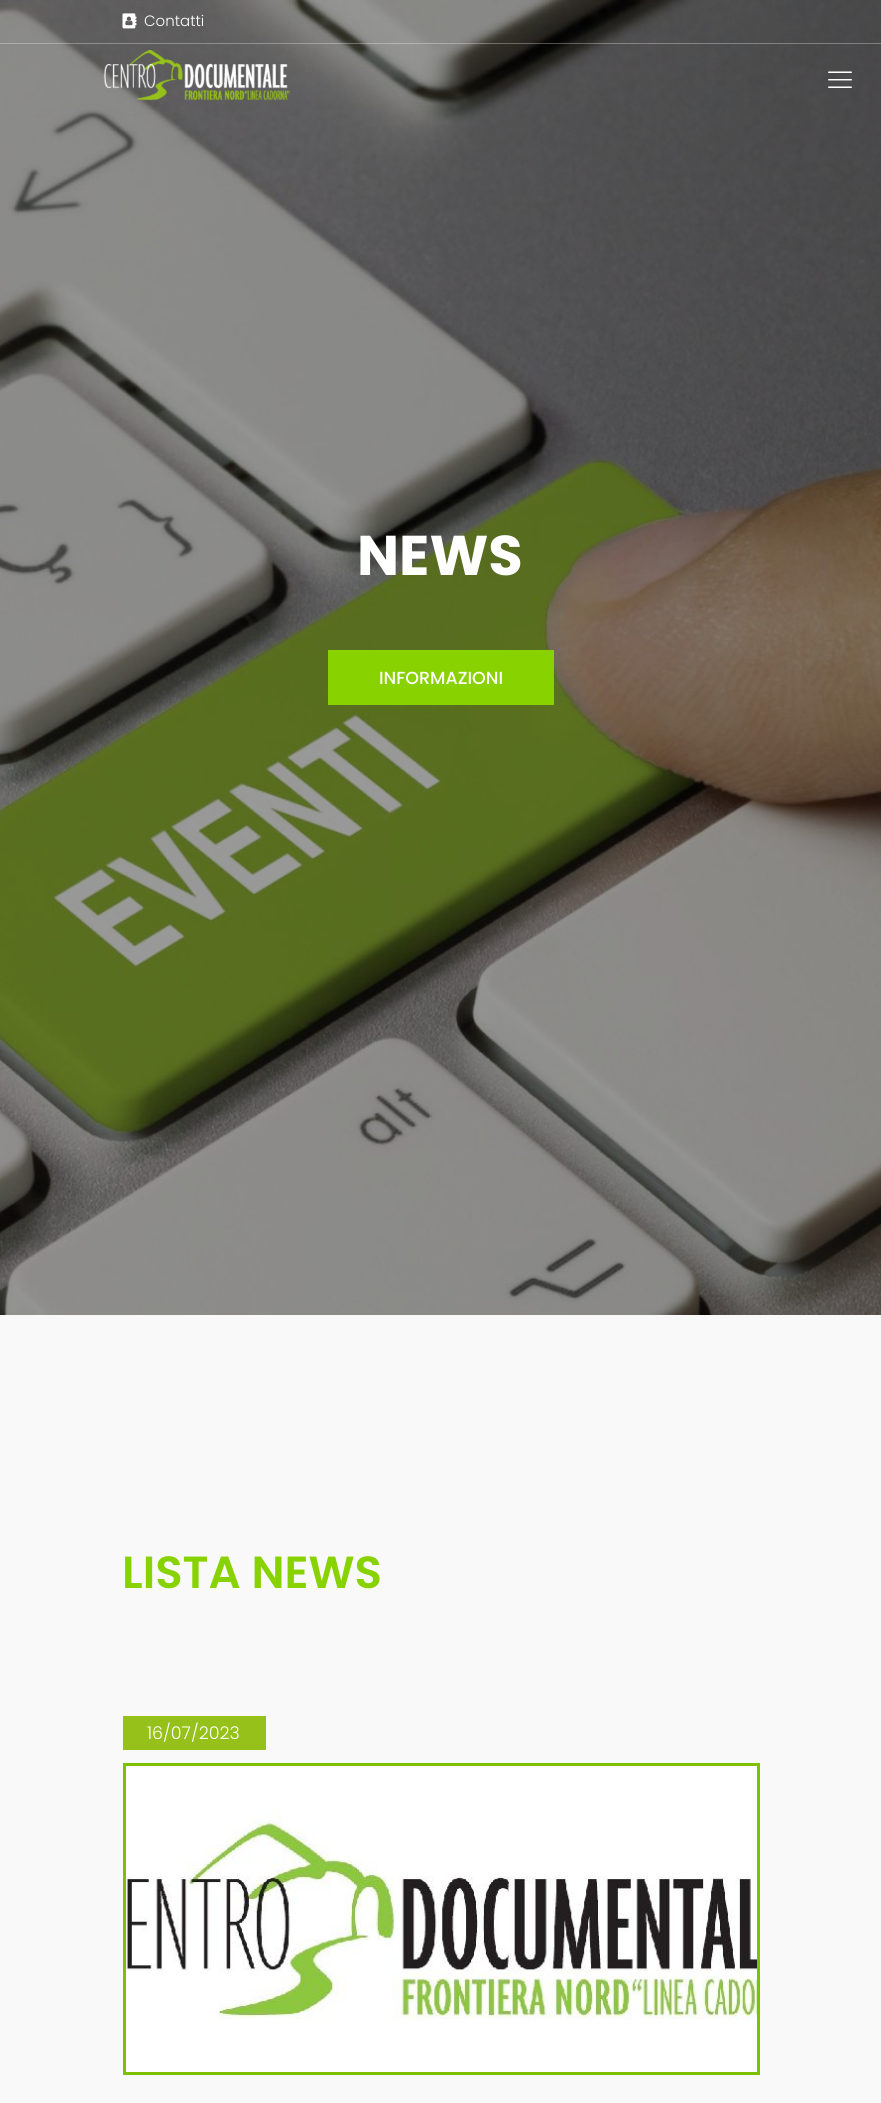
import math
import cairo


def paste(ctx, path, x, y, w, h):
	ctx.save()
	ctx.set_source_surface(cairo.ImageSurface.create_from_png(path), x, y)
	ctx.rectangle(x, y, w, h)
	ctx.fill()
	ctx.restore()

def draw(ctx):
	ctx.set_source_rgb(0.973, 0.973, 0.973)
	ctx.paint()
	paste(ctx, 'media/4.png', 0, 0, 881, 1315)
	paste(ctx, 'media/1.png', 122, 13, 15, 16)
	ctx.select_font_face('Poppins Light')
	ctx.set_font_size(15)
	ctx.set_source_rgb(1, 1, 1)
	ctx.move_to(144, 26)
	ctx.show_text('Contatti')
	ctx.set_source_rgba(1, 1, 1, 0.3)
	ctx.rectangle(0, 43, 881, 1)
	ctx.fill()
	paste(ctx, 'media/2.png', 103, 50, 187, 50)
	paste(ctx, 'media/3.png', 828, 71, 24, 17)
	ctx.select_font_face('Poppins', cairo.FONT_SLANT_NORMAL, cairo.FONT_WEIGHT_BOLD)
	ctx.set_font_size(56)
	ctx.set_source_rgb(1, 1, 1)
	ctx.move_to(357, 575)
	ctx.show_text('NEWS')
	ctx.set_source_rgb(0.533, 0.824, 0)
	ctx.rectangle(328, 650, 226, 55)
	ctx.fill()
	ctx.select_font_face('Poppins Medium')
	ctx.set_font_size(17.5)
	ctx.set_source_rgb(1, 1, 1)
	ctx.move_to(379, 684)
	ctx.show_text('INFORMAZIONI')
	ctx.select_font_face('Poppins SemiBold')
	ctx.set_font_size(45)
	ctx.set_source_rgb(0.533, 0.824, 0)
	ctx.move_to(122, 1588)
	ctx.show_text('LISTA NEWS')
	ctx.set_source_rgb(0.584, 0.757, 0.102)
	ctx.rectangle(123, 1716, 143, 34)
	ctx.fill()
	ctx.select_font_face('Poppins Light')
	ctx.set_font_size(17.5)
	ctx.set_source_rgb(1, 1, 1)
	ctx.move_to(147, 1739)
	ctx.show_text('16/07/2023')
	paste(ctx, 'media/5.png', 126, 1766, 631, 306)
	ctx.rectangle(124.5, 1764.5, 634, 309)
	ctx.set_source_rgb(0.49, 0.757, 0)
	ctx.set_line_width(3)
	ctx.stroke()


surface = cairo.ImageSurface(cairo.FORMAT_RGB24, 881, 2103)
ctx = cairo.Context(surface)
options = cairo.FontOptions()
options.set_hint_metrics(cairo.HINT_METRICS_OFF)
options.set_hint_style(cairo.HINT_STYLE_NONE)
ctx.set_font_options(options)
ctx.set_miter_limit(4)
draw(ctx)
surface.write_to_png('image.png')
